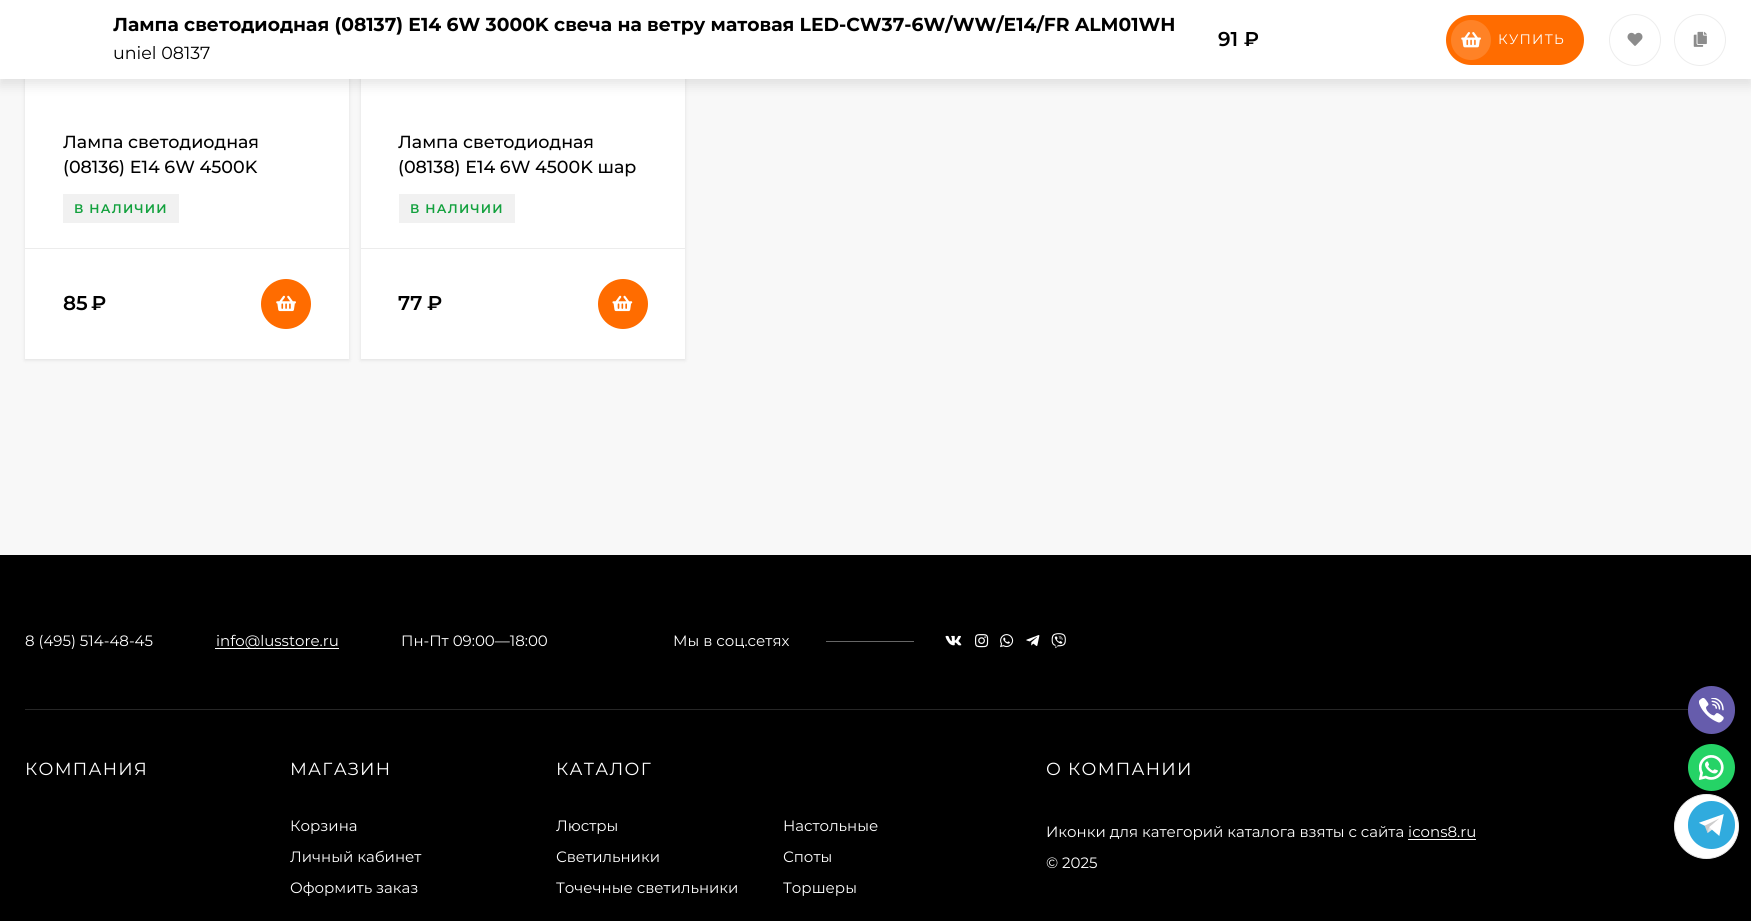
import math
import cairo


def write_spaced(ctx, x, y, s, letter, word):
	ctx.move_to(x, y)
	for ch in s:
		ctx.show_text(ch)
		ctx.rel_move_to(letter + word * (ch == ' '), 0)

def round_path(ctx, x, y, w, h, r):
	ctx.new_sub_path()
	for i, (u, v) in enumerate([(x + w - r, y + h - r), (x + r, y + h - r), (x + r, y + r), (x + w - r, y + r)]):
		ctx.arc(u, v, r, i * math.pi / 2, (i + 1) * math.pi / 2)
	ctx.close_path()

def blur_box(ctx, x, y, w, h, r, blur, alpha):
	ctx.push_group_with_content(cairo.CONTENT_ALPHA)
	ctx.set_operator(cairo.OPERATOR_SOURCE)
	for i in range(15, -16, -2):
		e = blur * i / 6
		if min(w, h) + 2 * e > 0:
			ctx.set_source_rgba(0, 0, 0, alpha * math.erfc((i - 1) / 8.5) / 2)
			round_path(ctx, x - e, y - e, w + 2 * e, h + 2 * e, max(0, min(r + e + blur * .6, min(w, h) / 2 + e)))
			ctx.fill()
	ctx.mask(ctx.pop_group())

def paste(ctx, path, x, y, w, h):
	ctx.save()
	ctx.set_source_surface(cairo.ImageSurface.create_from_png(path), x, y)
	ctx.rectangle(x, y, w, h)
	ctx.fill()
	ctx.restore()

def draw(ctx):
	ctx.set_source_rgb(0.969, 0.969, 0.969)
	ctx.paint()
	ctx.set_source_rgb(0, 0, 0)
	blur_box(ctx, 25, -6, 324, 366, 0, 2, 0.1)
	ctx.set_source_rgb(1, 1, 1)
	ctx.rectangle(25, 79, 324, 280)
	ctx.fill()
	ctx.set_source_rgb(0, 0, 0)
	blur_box(ctx, 361, -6, 324, 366, 0, 2, 0.1)
	ctx.set_source_rgb(1, 1, 1)
	ctx.rectangle(361, 79, 324, 280)
	ctx.fill()
	ctx.set_source_rgb(0, 0, 0)
	blur_box(ctx, 0, 6, 1751, 79, 0, 6, 0.1)
	ctx.set_source_rgb(1, 1, 1)
	ctx.rectangle(0, 0, 1751, 79)
	ctx.fill()
	ctx.select_font_face('Montserrat', cairo.FONT_SLANT_NORMAL, cairo.FONT_WEIGHT_BOLD)
	ctx.set_font_size(18.75)
	ctx.set_source_rgb(0, 0, 0)
	ctx.move_to(113, 31)
	ctx.show_text('Лампа светодиодная (08137) E14 6W 3000K свеча на ветру матовая LED-CW37-6W/WW/E14/FR ALM01WH')
	ctx.select_font_face('Montserrat')
	ctx.set_font_size(17.5)
	ctx.move_to(113, 59)
	ctx.show_text('uniel 08137')
	ctx.select_font_face('Montserrat SemiBold')
	ctx.set_font_size(20)
	ctx.move_to(1218, 46)
	ctx.show_text('91 ₽')
	ctx.set_source_rgb(1, 0.424, 0)
	round_path(ctx, 1446, 15, 138, 50, 25)
	ctx.fill()
	ctx.set_source_rgb(1, 0.51, 0.149)
	ctx.arc(1471, 40, 20, 0, 2 * math.pi)
	ctx.fill()
	paste(ctx, 'media/1.png', 1461, 32, 20, 16)
	ctx.select_font_face('Montserrat')
	ctx.set_font_size(13.75)
	ctx.set_source_rgb(1, 1, 1)
	write_spaced(ctx, 1498, 44, 'КУПИТЬ', 1.25, 0)
	ctx.new_path()
	ctx.arc(1635, 40, 25.5, 0, 2 * math.pi)
	ctx.set_source_rgb(0.929, 0.929, 0.929)
	ctx.set_line_width(1)
	ctx.stroke()
	paste(ctx, 'media/2.png', 1627, 32, 16, 14)
	ctx.arc(1700, 40, 25.5, 0, 2 * math.pi)
	ctx.stroke()
	paste(ctx, 'media/3.png', 1693, 31, 14, 16)
	ctx.set_source_rgb(0.922, 0.922, 0.922)
	ctx.rectangle(25, 248, 324, 1)
	ctx.fill()
	ctx.select_font_face('Montserrat Medium')
	ctx.set_font_size(17.5)
	ctx.set_source_rgb(0, 0, 0)
	ctx.move_to(63, 148)
	ctx.show_text('Лампа светодиодная')
	ctx.move_to(63, 173)
	ctx.show_text('(08136) E14 6W 4500K')
	ctx.set_source_rgb(0.945, 0.945, 0.945)
	ctx.rectangle(63, 194, 116, 29)
	ctx.fill()
	ctx.select_font_face('Montserrat SemiBold')
	ctx.set_font_size(12.5)
	ctx.set_source_rgb(0.075, 0.631, 0.243)
	write_spaced(ctx, 74, 213, 'В НАЛИЧИИ', 1.25, 0)
	ctx.set_font_size(20)
	ctx.set_source_rgb(0, 0, 0)
	ctx.move_to(63, 310)
	ctx.show_text('85')
	ctx.move_to(91, 310)
	ctx.show_text('₽')
	ctx.set_source_rgb(1, 0.424, 0)
	ctx.new_path()
	ctx.arc(286, 304, 25, 0, 2 * math.pi)
	ctx.fill()
	paste(ctx, 'media/4.png', 276, 295, 20, 17)
	ctx.set_source_rgb(0.922, 0.922, 0.922)
	ctx.rectangle(361, 248, 324, 1)
	ctx.fill()
	ctx.select_font_face('Montserrat Medium')
	ctx.set_font_size(17.5)
	ctx.set_source_rgb(0, 0, 0)
	ctx.move_to(398, 148)
	ctx.show_text('Лампа светодиодная')
	ctx.move_to(398, 173)
	ctx.show_text('(08138) E14 6W 4500K шар')
	ctx.set_source_rgb(0.945, 0.945, 0.945)
	ctx.rectangle(399, 194, 116, 29)
	ctx.fill()
	ctx.select_font_face('Montserrat SemiBold')
	ctx.set_font_size(12.5)
	ctx.set_source_rgb(0.075, 0.631, 0.243)
	write_spaced(ctx, 410, 213, 'В НАЛИЧИИ', 1.25, 0)
	ctx.set_font_size(20)
	ctx.set_source_rgb(0, 0, 0)
	ctx.move_to(398, 310)
	ctx.show_text('77')
	ctx.move_to(427, 310)
	ctx.show_text('₽')
	ctx.set_source_rgb(1, 0.424, 0)
	ctx.new_path()
	ctx.arc(623, 304, 25, 0, 2 * math.pi)
	ctx.fill()
	paste(ctx, 'media/5.png', 612, 295, 21, 17)
	ctx.set_source_rgb(0, 0, 0)
	ctx.rectangle(0, 555, 1751, 366)
	ctx.fill()
	ctx.set_source_rgb(0.149, 0.149, 0.149)
	ctx.rectangle(25, 709, 1664, 1)
	ctx.fill()
	ctx.select_font_face('Montserrat')
	ctx.set_font_size(15)
	ctx.set_source_rgb(1, 1, 1)
	ctx.move_to(25, 646)
	ctx.show_text('8 (495) 514-48-45')
	ctx.rectangle(215, 648, 124, 1)
	ctx.fill()
	for x, y, s in [
		(216, 646, 'info@lusstore.ru'),
		(401, 646, 'Пн-Пт 09:00—18:00'),
		(673, 646, 'Мы в соц.сетях'),
	]:
		ctx.move_to(x, y)
		ctx.show_text(s)
	ctx.set_source_rgb(0.4, 0.4, 0.4)
	ctx.rectangle(826, 641, 88, 1)
	ctx.fill()
	paste(ctx, 'media/6.png', 945, 635, 17, 11)
	paste(ctx, 'media/7.png', 975, 634, 14, 14)
	paste(ctx, 'media/8.png', 1000, 634, 14, 14)
	paste(ctx, 'media/9.png', 1026, 635, 14, 11)
	paste(ctx, 'media/10.png', 1051, 633, 15, 16)
	ctx.set_font_size(17.5)
	ctx.set_source_rgb(1, 1, 1)
	write_spaced(ctx, 25, 775, 'КОМПАНИЯ', 1.25, 0)
	write_spaced(ctx, 290, 775, 'МАГАЗИН', 1.25, 0)
	ctx.set_font_size(15)
	for x, y, s in [
		(290, 831, 'Корзина'),
		(290, 862, 'Личный кабинет'),
		(290, 893, 'Оформить заказ'),
	]:
		ctx.move_to(x, y)
		ctx.show_text(s)
	ctx.set_font_size(17.5)
	write_spaced(ctx, 556, 775, 'КАТАЛОГ', 1.25, 0)
	ctx.set_font_size(15)
	for x, y, s in [
		(556, 831, 'Люстры'),
		(783, 831, 'Настольные'),
		(556, 862, 'Светильники'),
		(783, 862, 'Споты'),
		(556, 893, 'Точечные светильники'),
		(783, 893, 'Торшеры'),
	]:
		ctx.move_to(x, y)
		ctx.show_text(s)
	ctx.set_font_size(17.5)
	write_spaced(ctx, 1046, 775, 'О КОМПАНИИ', 1.25, 0)
	ctx.set_font_size(15)
	ctx.move_to(1046, 837)
	ctx.show_text('Иконки для категорий каталога взяты с сайта icons8.ru')
	ctx.rectangle(1408, 839, 68, 1)
	ctx.fill()
	ctx.move_to(1046, 868)
	ctx.show_text('© 2025')
	ctx.set_source_rgb(0.4, 0.361, 0.675)
	round_path(ctx, 1688, 686, 47, 48, 23.5)
	ctx.fill()
	paste(ctx, 'media/11.png', 1699, 698, 25, 25)
	ctx.set_source_rgb(0.145, 0.827, 0.4)
	ctx.arc(1711.5, 767.5, 23.5, 0, 2 * math.pi)
	ctx.fill()
	paste(ctx, 'media/12.png', 1699, 755, 25, 25)
	ctx.set_source_rgb(1, 1, 1)
	ctx.arc(1706.5, 826.5, 32, 0, 2 * math.pi)
	ctx.fill_preserve()
	ctx.set_source_rgb(0.922, 0.922, 0.922)
	ctx.stroke()
	ctx.set_source_rgb(0.188, 0.671, 0.871)
	round_path(ctx, 1688, 801, 47, 48, 23.5)
	ctx.fill()
	paste(ctx, 'media/13.png', 1699, 814, 25, 22)


surface = cairo.ImageSurface(cairo.FORMAT_RGB24, 1751, 921)
ctx = cairo.Context(surface)
options = cairo.FontOptions()
options.set_hint_metrics(cairo.HINT_METRICS_OFF)
options.set_hint_style(cairo.HINT_STYLE_NONE)
ctx.set_font_options(options)
ctx.set_miter_limit(4)
draw(ctx)
surface.write_to_png('image.png')
